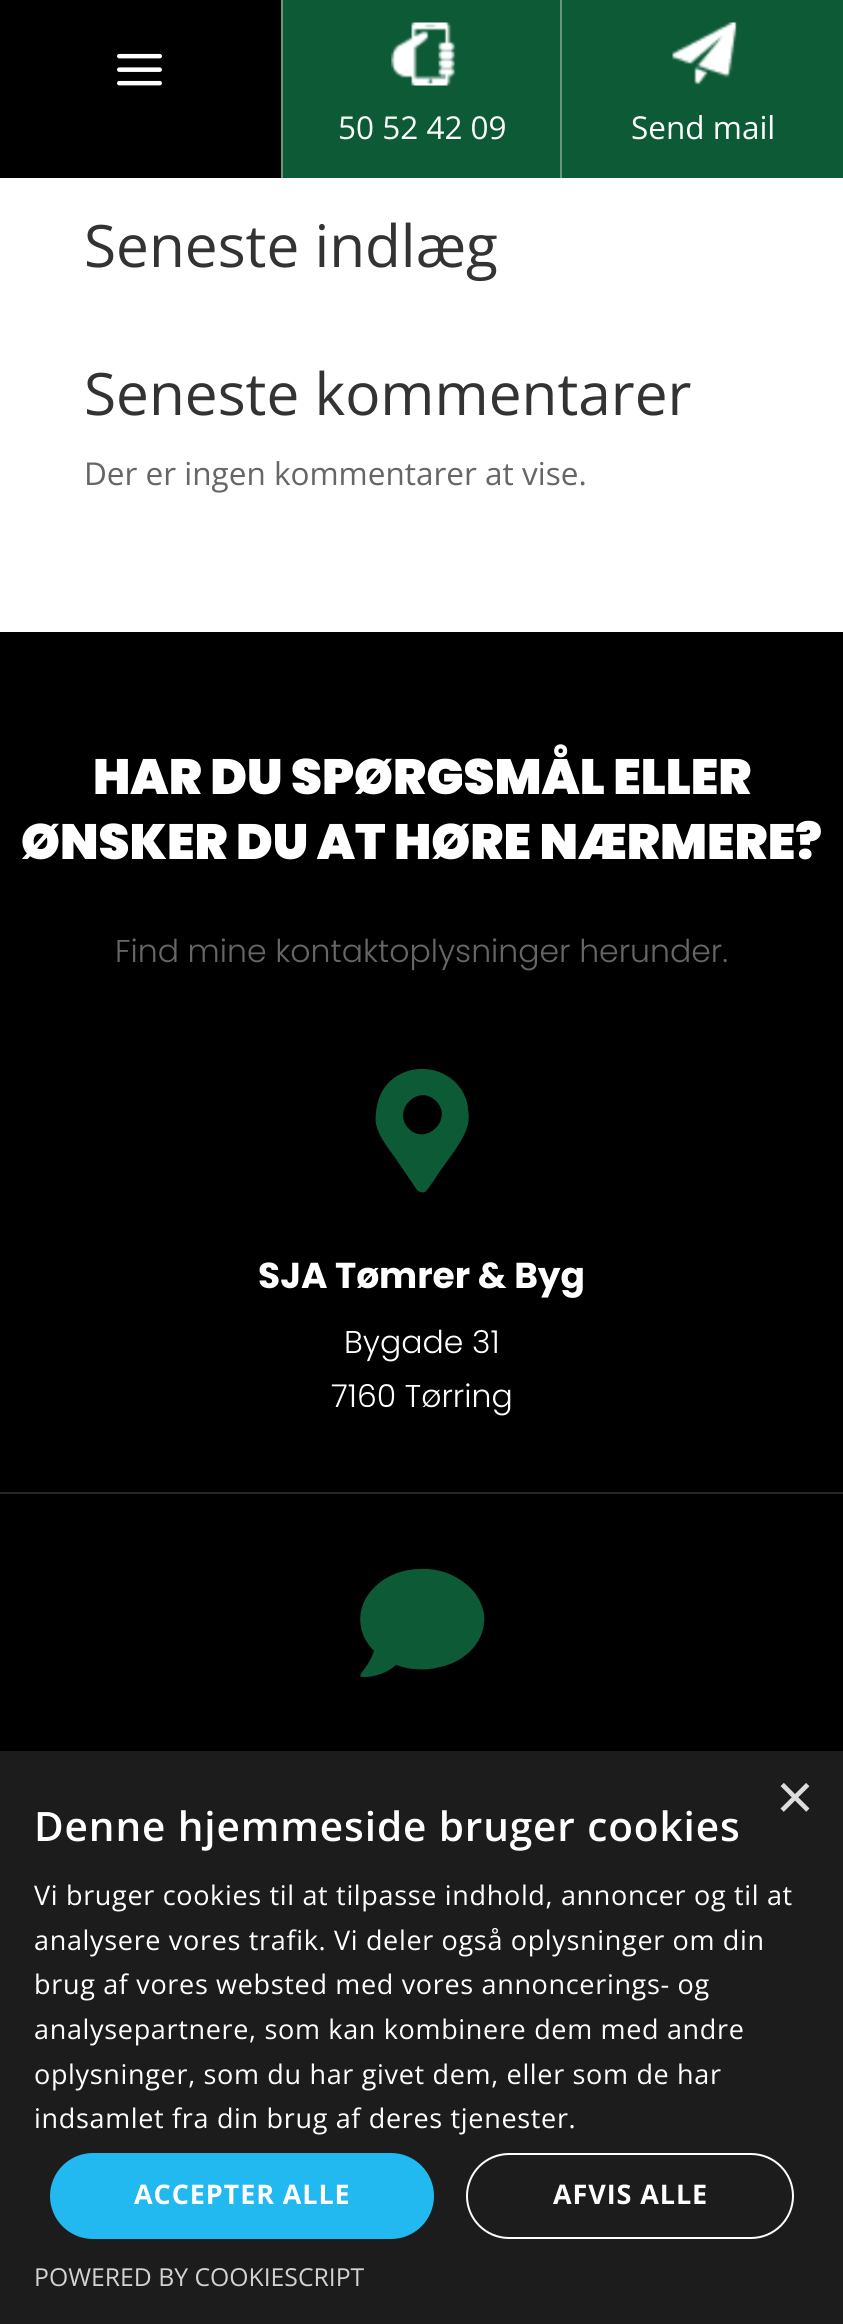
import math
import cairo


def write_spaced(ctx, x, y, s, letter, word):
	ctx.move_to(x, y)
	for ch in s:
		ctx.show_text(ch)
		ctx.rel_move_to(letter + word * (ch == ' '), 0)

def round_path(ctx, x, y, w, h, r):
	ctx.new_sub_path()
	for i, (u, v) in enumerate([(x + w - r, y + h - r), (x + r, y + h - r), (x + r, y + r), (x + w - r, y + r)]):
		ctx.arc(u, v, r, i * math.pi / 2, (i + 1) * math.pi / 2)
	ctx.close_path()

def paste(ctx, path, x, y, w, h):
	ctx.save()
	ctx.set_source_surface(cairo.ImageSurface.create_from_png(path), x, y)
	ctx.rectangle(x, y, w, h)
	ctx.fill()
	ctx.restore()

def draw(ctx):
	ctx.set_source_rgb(1, 1, 1)
	ctx.paint()
	ctx.set_source_rgb(0, 0, 0)
	ctx.rectangle(0, 0, 281, 178)
	ctx.fill()
	paste(ctx, 'media/1.png', 117, 53, 45, 33)
	ctx.set_source_rgb(0.051, 0.353, 0.216)
	ctx.rectangle(283, 0, 560, 178)
	ctx.fill()
	ctx.set_source_rgb(0.404, 0.592, 0.506)
	ctx.rectangle(560, 0, 2, 178)
	ctx.rectangle(281, 0, 2, 178)
	ctx.fill()
	paste(ctx, 'media/2.png', 391, 22, 65, 64)
	ctx.select_font_face('Open Sans')
	ctx.set_font_size(31.5)
	ctx.set_source_rgb(1, 1, 1)
	ctx.move_to(338, 139)
	ctx.show_text('50 52 42 09')
	paste(ctx, 'media/3.png', 672, 22, 65, 63)
	ctx.move_to(631, 139)
	ctx.show_text('Send mail')
	ctx.set_font_size(58.5)
	ctx.set_source_rgb(0.2, 0.2, 0.2)
	ctx.move_to(84, 267)
	ctx.show_text('Seneste indlæg')
	ctx.move_to(84, 415)
	ctx.show_text('Seneste kommentarer')
	ctx.set_font_size(31.5)
	ctx.set_source_rgb(0.4, 0.4, 0.4)
	ctx.move_to(84, 485)
	ctx.show_text('Der er ingen kommentarer at vise.')
	ctx.set_source_rgb(0, 0, 0)
	ctx.rectangle(0, 632, 843, 1119)
	ctx.fill()
	ctx.select_font_face('Poppins Black')
	ctx.set_font_size(49.5)
	ctx.set_source_rgb(1, 1, 1)
	ctx.move_to(93, 794)
	ctx.show_text('HAR DU SPØRGSMÅL ELLER')
	ctx.move_to(21, 859)
	ctx.show_text('ØNSKER DU AT HØRE NÆRMERE?')
	ctx.select_font_face('Poppins Light')
	ctx.set_font_size(31.5)
	ctx.set_source_rgb(0.4, 0.4, 0.4)
	ctx.move_to(115, 962)
	ctx.show_text('Find mine kontaktoplysninger herunder.')
	ctx.set_source_rgb(0.051, 0.353, 0.216)
	ctx.new_path()
	ctx.move_to(417, 1190)
	ctx.line_to(398, 1162)
	ctx.curve_to(390, 1150, 379, 1138, 376, 1124)
	ctx.curve_to(375, 1118, 376, 1111, 377, 1106)
	ctx.curve_to(384, 1065, 438, 1056, 461, 1089)
	ctx.curve_to(465, 1095, 468, 1103, 468, 1110)
	ctx.curve_to(469, 1114, 469, 1119, 468, 1124)
	ctx.curve_to(465, 1139, 449, 1158, 440, 1171)
	ctx.curve_to(438, 1174, 428, 1190, 425, 1192)
	ctx.curve_to(422, 1193, 419, 1192, 417, 1190)
	ctx.close_path()
	ctx.move_to(409, 1129)
	ctx.curve_to(426, 1146, 454, 1119, 436, 1101)
	ctx.curve_to(418, 1083, 391, 1111, 409, 1129)
	ctx.close_path()
	ctx.fill()
	ctx.select_font_face('Poppins', cairo.FONT_SLANT_NORMAL, cairo.FONT_WEIGHT_BOLD)
	ctx.set_font_size(36)
	ctx.set_source_rgb(1, 1, 1)
	ctx.move_to(258, 1288)
	ctx.show_text('SJA Tømrer & Byg')
	ctx.select_font_face('Poppins Light')
	ctx.set_font_size(31.5)
	ctx.move_to(344, 1353)
	ctx.show_text('Bygade 31')
	ctx.move_to(331, 1407)
	ctx.show_text('7160 Tørring')
	ctx.set_source_rgb(0.149, 0.149, 0.149)
	ctx.rectangle(0, 1492, 843, 2)
	ctx.fill()
	ctx.set_source_rgb(0.051, 0.353, 0.216)
	ctx.new_path()
	ctx.move_to(378, 1584)
	ctx.curve_to(392, 1572, 410, 1568, 428, 1569)
	ctx.curve_to(442, 1570, 455, 1575, 466, 1584)
	ctx.curve_to(475, 1591, 482, 1602, 484, 1614)
	ctx.curve_to(487, 1641, 465, 1662, 440, 1667)
	ctx.curve_to(426, 1671, 410, 1670, 396, 1665)
	ctx.curve_to(388, 1672, 378, 1676, 367, 1677)
	ctx.curve_to(355, 1678, 362, 1673, 365, 1668)
	ctx.curve_to(369, 1663, 372, 1657, 374, 1651)
	ctx.curve_to(354, 1631, 356, 1602, 378, 1584)
	ctx.close_path()
	ctx.fill()
	ctx.set_source_rgb(0.11, 0.11, 0.11)
	ctx.rectangle(0, 1751, 843, 573)
	ctx.fill()
	ctx.select_font_face('Liberation Sans')
	ctx.set_font_size(65)
	ctx.set_source_rgb(0.867, 0.867, 0.867)
	ctx.move_to(776, 1819)
	ctx.show_text('×')
	ctx.select_font_face('Open Sans SemiBold')
	ctx.set_font_size(40.5)
	ctx.set_source_rgb(1, 1, 1)
	write_spaced(ctx, 34, 1841, 'Denne hjemmeside bruger cookies', 0.9, 0)
	ctx.select_font_face('Open Sans')
	ctx.set_font_size(27)
	for x, y, s in [
		(34, 1905, 'Vi bruger cookies til at tilpasse indhold, annoncer og til at'),
		(34, 1950, 'analysere vores trafik. Vi deler også oplysninger om din'),
		(34, 1994, 'brug af vores websted med vores annoncerings- og'),
		(34, 2039, 'analysepartnere, som kan kombinere dem med andre'),
		(34, 2084, 'oplysninger, som du har givet dem, eller som de har'),
		(34, 2128, 'indsamlet fra din brug af deres tjenester.'),
	]:
		write_spaced(ctx, x, y, s, 0.67, 0)
	ctx.set_source_rgb(0.133, 0.722, 0.941)
	round_path(ctx, 50, 2153, 384, 86, 43)
	ctx.fill()
	ctx.select_font_face('Open Sans', cairo.FONT_SLANT_NORMAL, cairo.FONT_WEIGHT_BOLD)
	ctx.set_source_rgb(1, 1, 1)
	write_spaced(ctx, 134, 2204, 'ACCEPTER ALLE', 0.9, 0)
	round_path(ctx, 467, 2154, 326, 84, 42)
	ctx.stroke()
	write_spaced(ctx, 553, 2204, 'AFVIS ALLE', 0.9, 0)
	ctx.select_font_face('Open Sans')
	ctx.set_font_size(24.75)
	ctx.set_source_rgb(0.824, 0.824, 0.824)
	ctx.move_to(34, 2286)
	ctx.show_text('POWERED BY COOKIESCRIPT')


surface = cairo.ImageSurface(cairo.FORMAT_RGB24, 843, 2324)
ctx = cairo.Context(surface)
options = cairo.FontOptions()
options.set_hint_metrics(cairo.HINT_METRICS_OFF)
options.set_hint_style(cairo.HINT_STYLE_NONE)
ctx.set_font_options(options)
ctx.set_miter_limit(4)
draw(ctx)
surface.write_to_png('image.png')
